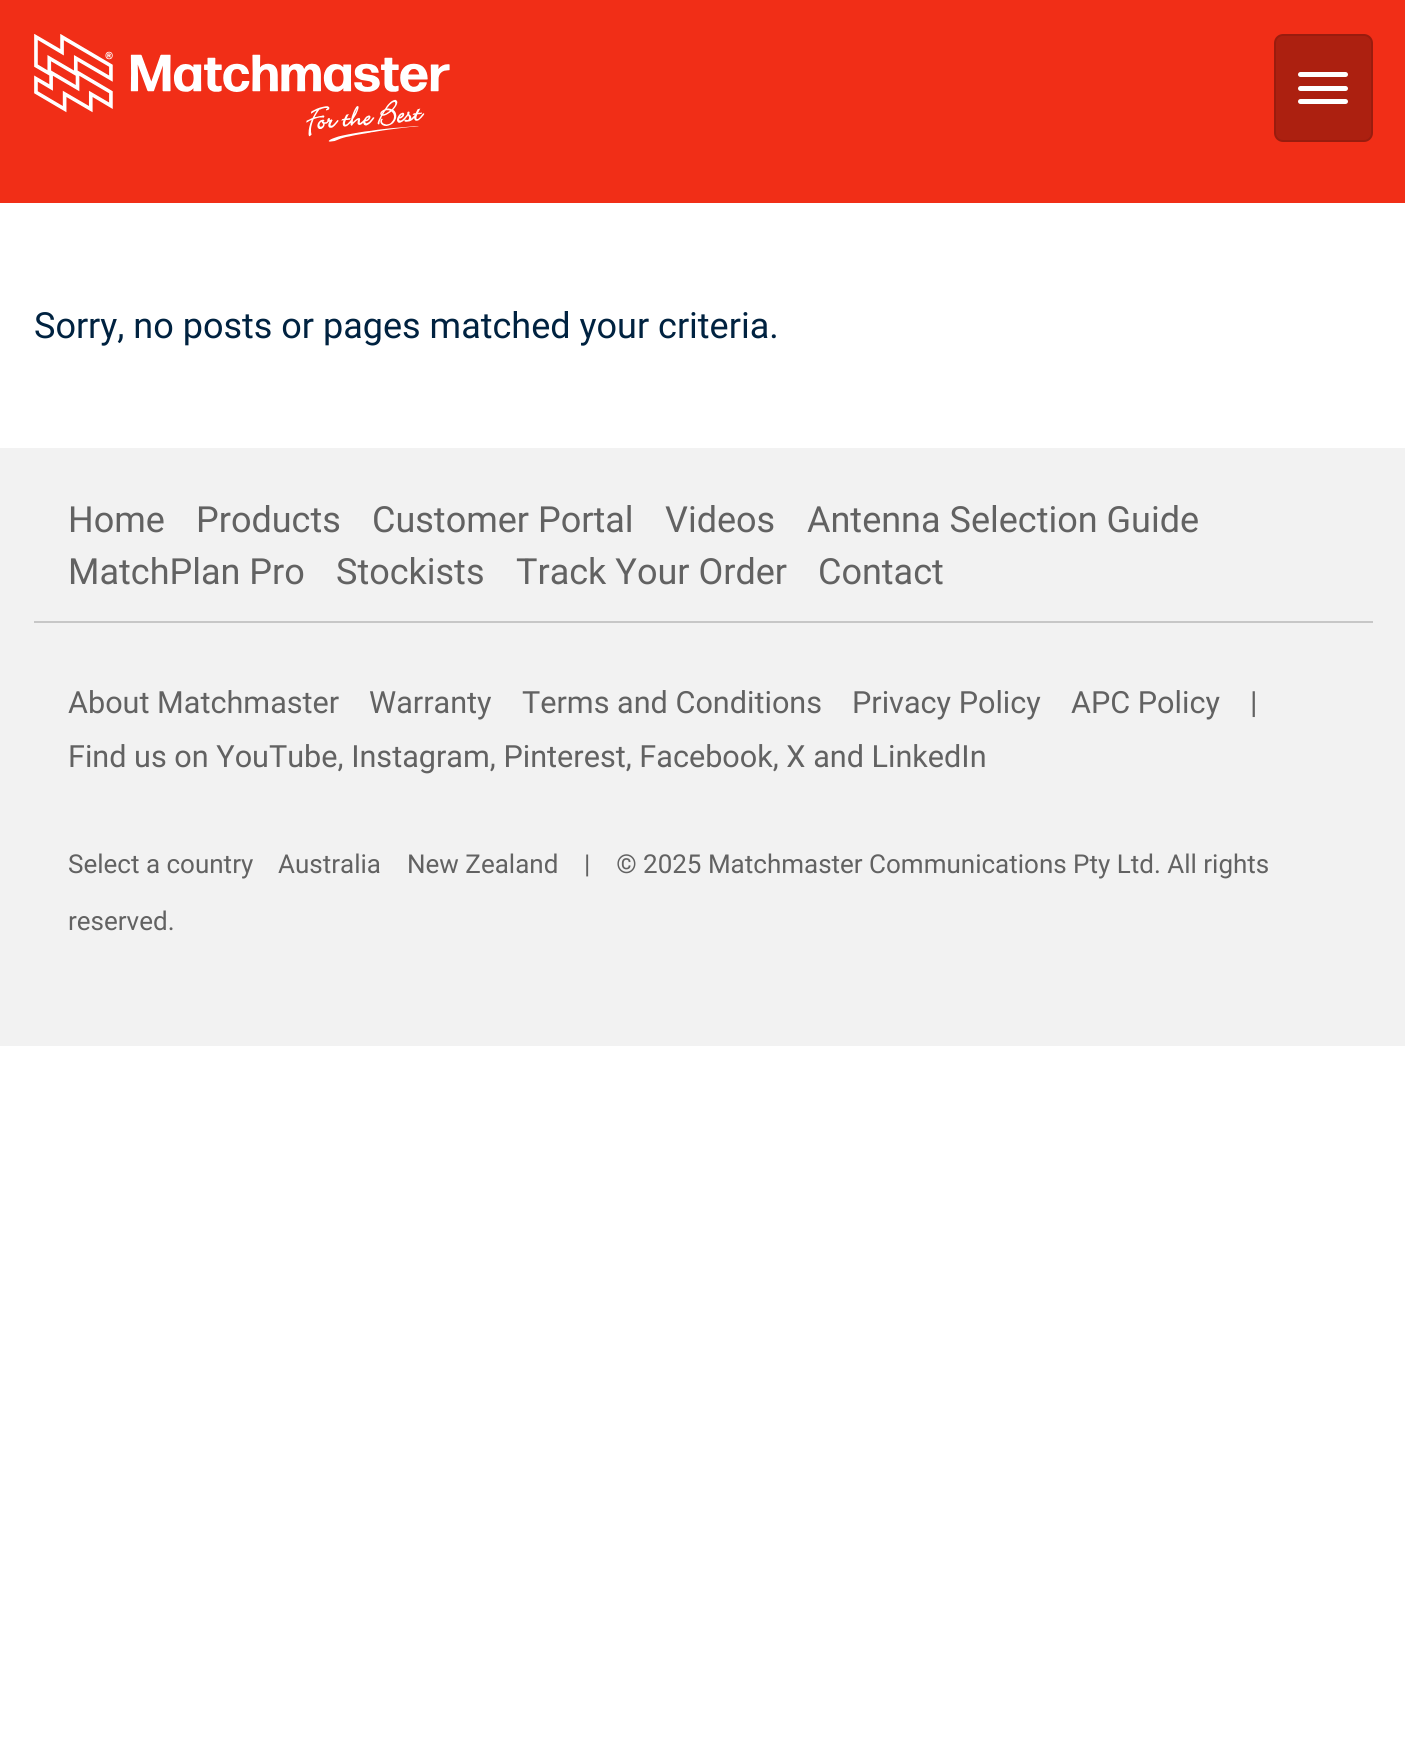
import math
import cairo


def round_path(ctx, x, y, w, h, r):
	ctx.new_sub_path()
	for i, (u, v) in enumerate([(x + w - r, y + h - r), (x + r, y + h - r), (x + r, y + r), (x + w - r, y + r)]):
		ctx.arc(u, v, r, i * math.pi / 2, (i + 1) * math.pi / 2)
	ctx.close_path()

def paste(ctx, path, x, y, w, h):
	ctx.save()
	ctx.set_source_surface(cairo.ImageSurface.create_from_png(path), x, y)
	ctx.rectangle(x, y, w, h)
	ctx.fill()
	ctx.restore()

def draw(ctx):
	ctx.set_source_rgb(1, 1, 1)
	ctx.paint()
	ctx.set_source_rgb(0.945, 0.18, 0.09)
	ctx.rectangle(0, 0, 1405, 203)
	ctx.fill()
	paste(ctx, 'media/1.png', 34, 34, 416, 108)
	ctx.set_source_rgb(0.675, 0.125, 0.063)
	round_path(ctx, 1275, 35, 97, 106, 8)
	ctx.fill_preserve()
	ctx.set_source_rgb(0.6, 0.11, 0.055)
	ctx.stroke()
	ctx.set_source_rgb(1, 1, 1)
	round_path(ctx, 1298, 72, 50, 5, 2.5)
	ctx.fill()
	round_path(ctx, 1298, 86, 50, 5, 2.5)
	ctx.fill()
	round_path(ctx, 1298, 99, 50, 5, 2.5)
	ctx.fill()
	ctx.select_font_face('Roboto')
	ctx.set_font_size(36)
	ctx.set_source_rgb(0, 0.133, 0.251)
	ctx.move_to(34, 338)
	ctx.show_text('Sorry, no posts or pages matched your criteria.')
	ctx.set_source_rgb(0.949, 0.949, 0.949)
	ctx.rectangle(0, 448, 1405, 598)
	ctx.fill()
	ctx.set_source_rgb(0.78, 0.78, 0.78)
	ctx.rectangle(34, 621, 1339, 2)
	ctx.fill()
	ctx.set_source_rgb(0.384, 0.384, 0.384)
	for x, y, s in [
		(68, 532, 'Home'),
		(196, 532, 'Products'),
		(372, 532, 'Customer Portal'),
		(665, 532, 'Videos'),
		(807, 532, 'Antenna Selection Guide'),
		(68, 584, 'MatchPlan Pro'),
		(336, 584, 'Stockists'),
		(516, 584, 'Track Your Order'),
		(818, 584, 'Contact'),
	]:
		ctx.move_to(x, y)
		ctx.show_text(s)
	ctx.set_font_size(30.6)
	for x, y, s in [
		(68, 713, 'About Matchmaster'),
		(369, 713, 'Warranty'),
		(522, 713, 'Terms and Conditions'),
		(852, 713, 'Privacy Policy'),
		(1071, 713, 'APC Policy'),
		(1250, 713, '|'),
		(68, 767, 'Find us on YouTube, Instagram, Pinterest, Facebook, X and LinkedIn'),
	]:
		ctx.move_to(x, y)
		ctx.show_text(s)
	ctx.set_font_size(26)
	for x, y, s in [
		(68, 873, 'Select a country'),
		(278, 873, 'Australia'),
		(407, 873, 'New Zealand'),
		(584, 873, '|    © 2025 Matchmaster Communications Pty Ltd. All rights'),
		(68, 930, 'reserved.'),
	]:
		ctx.move_to(x, y)
		ctx.show_text(s)


surface = cairo.ImageSurface(cairo.FORMAT_RGB24, 1405, 1759)
ctx = cairo.Context(surface)
options = cairo.FontOptions()
options.set_hint_metrics(cairo.HINT_METRICS_OFF)
options.set_hint_style(cairo.HINT_STYLE_NONE)
ctx.set_font_options(options)
ctx.set_miter_limit(4)
draw(ctx)
surface.write_to_png('image.png')
